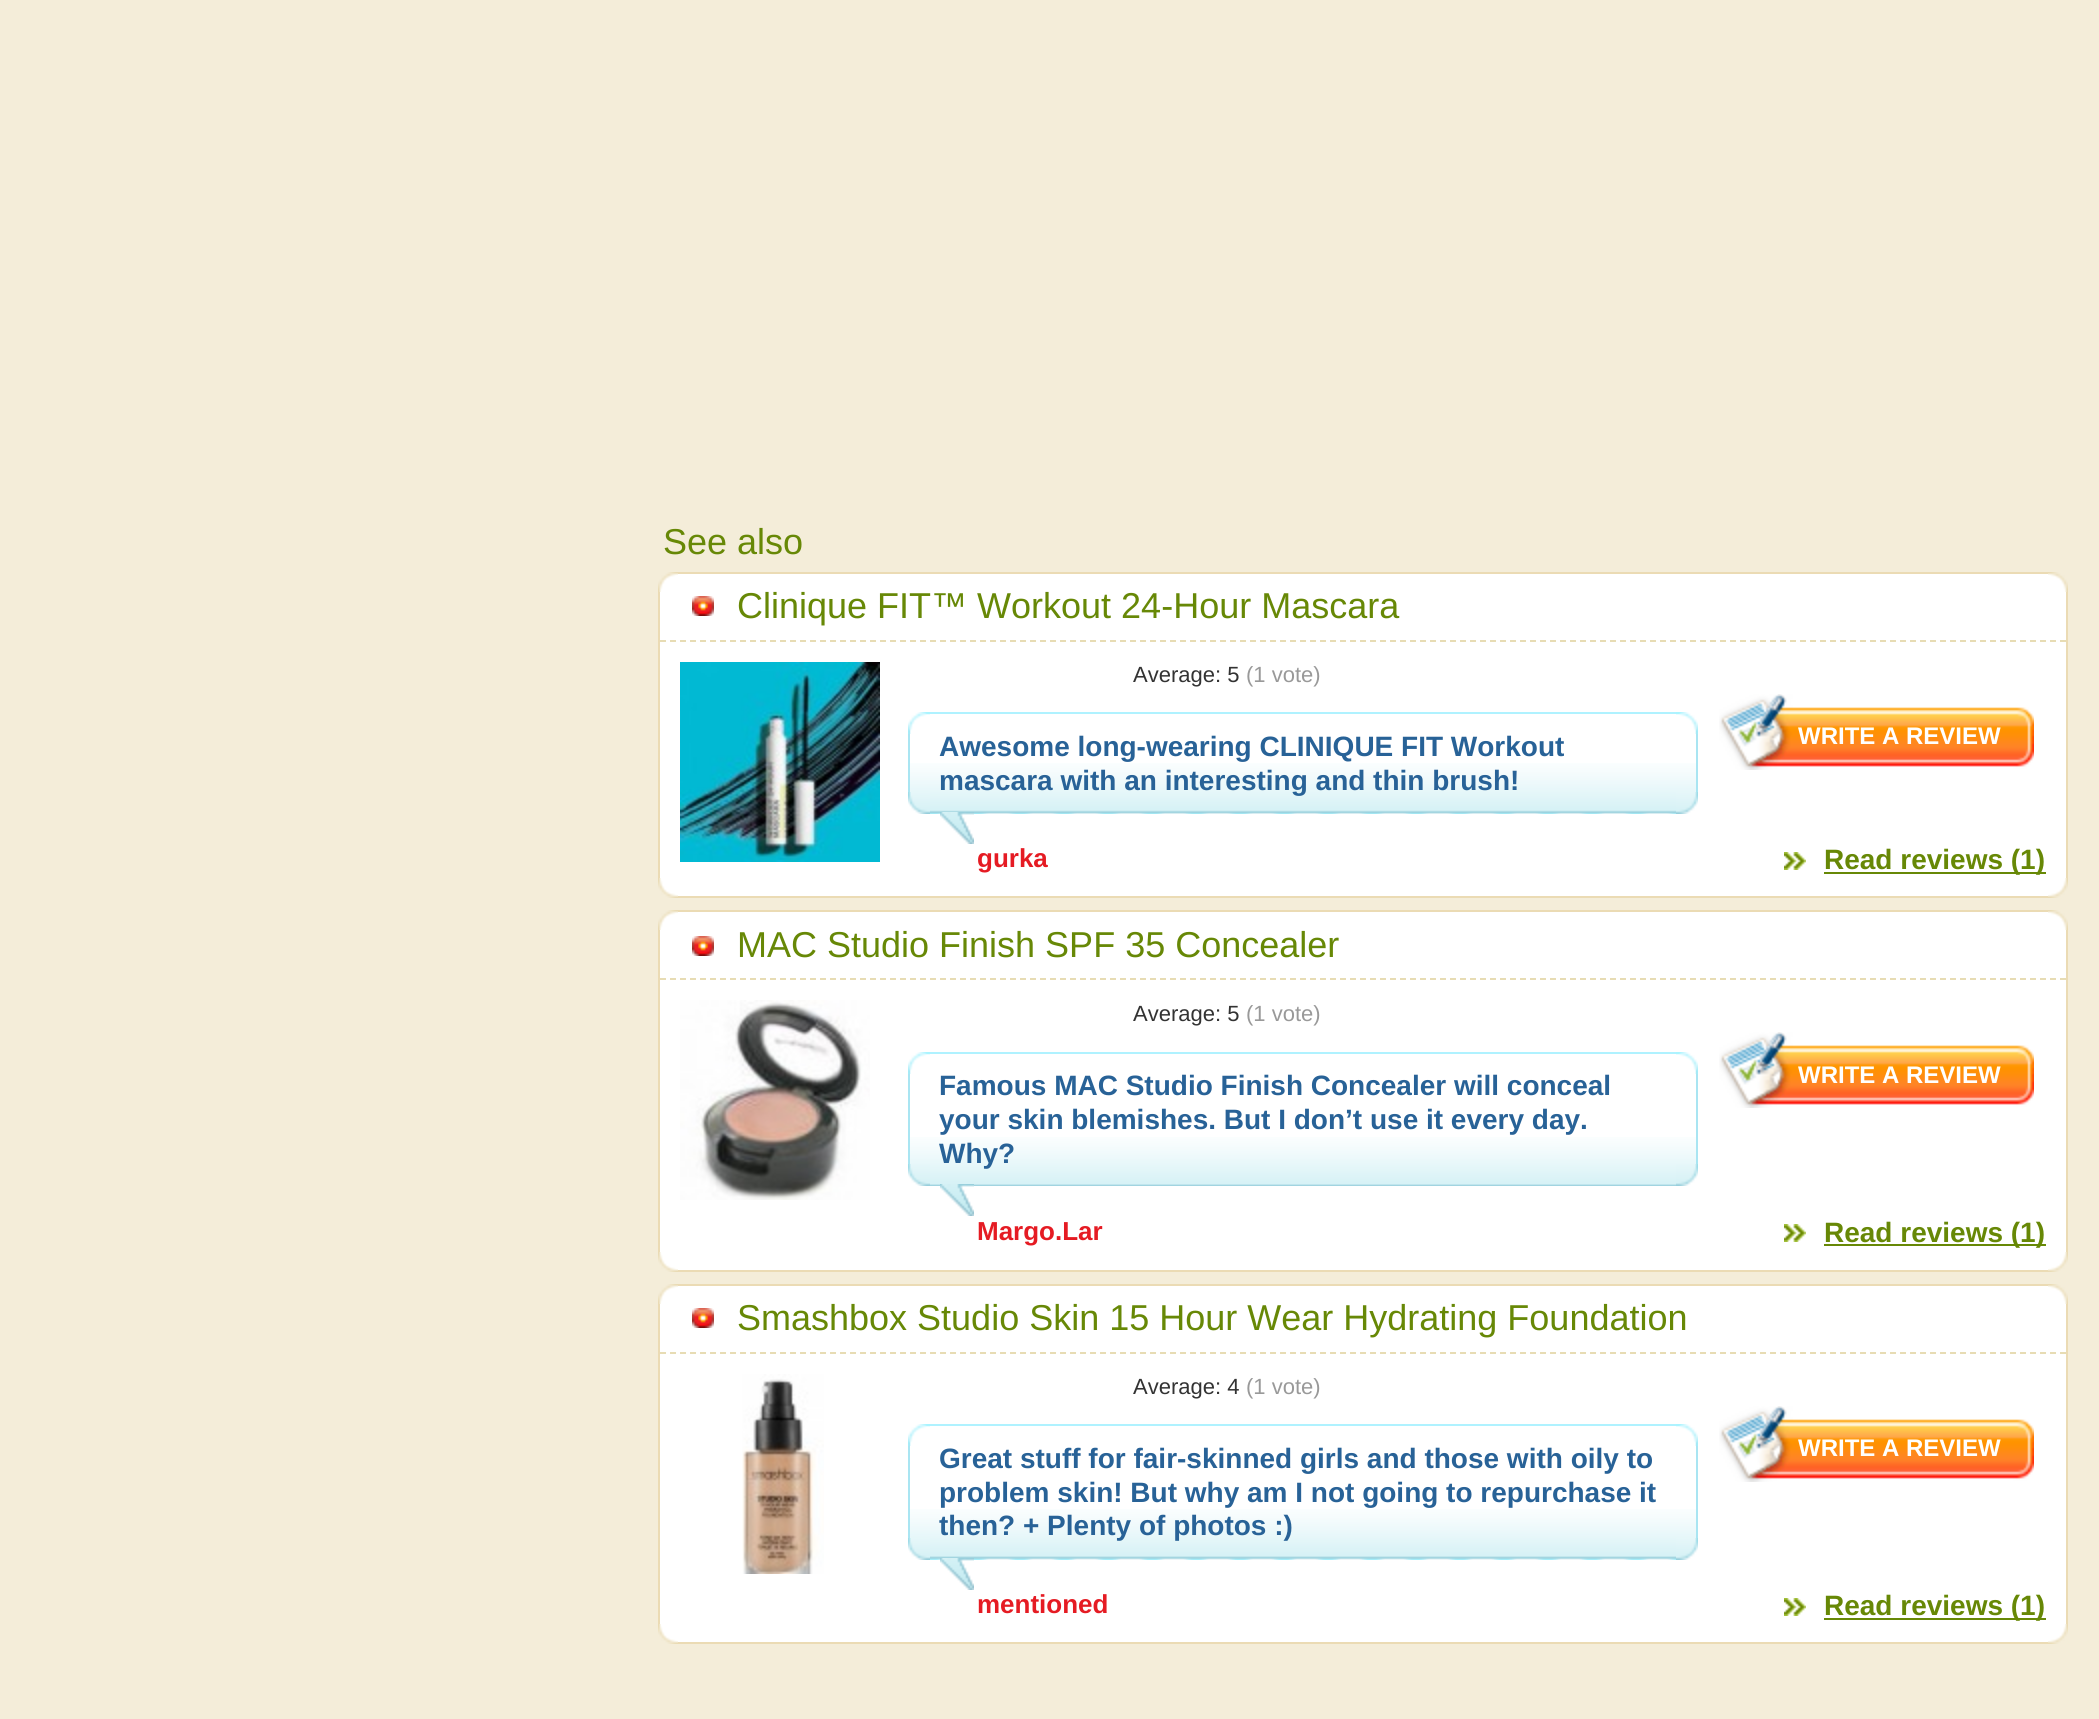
import math
import cairo


def paste(ctx, path, x, y, w, h):
	ctx.save()
	ctx.set_source_surface(cairo.ImageSurface.create_from_png(path), x, y)
	ctx.rectangle(x, y, w, h)
	ctx.fill()
	ctx.restore()

def draw(ctx):
	ctx.set_source_rgb(0.957, 0.929, 0.851)
	ctx.paint()
	ctx.select_font_face('Liberation Sans')
	ctx.set_font_size(36)
	ctx.set_source_rgb(0.404, 0.533, 0.024)
	ctx.move_to(663, 554)
	ctx.show_text('See also')
	ctx.set_source_rgb(1, 1, 1)
	ctx.rectangle(659, 573, 1408, 324)
	ctx.fill_preserve()
	ctx.set_source_rgb(0.918, 0.859, 0.706)
	ctx.stroke()
	paste(ctx, 'media/1.png', 658, 572, 20, 20)
	paste(ctx, 'media/2.png', 2048, 572, 20, 20)
	ctx.new_path()
	ctx.move_to(660, 641)
	ctx.line_to(2066, 641)
	ctx.set_source_rgb(0.906, 0.863, 0.706)
	ctx.set_dash([6, 4])
	ctx.stroke()
	paste(ctx, 'media/3.png', 692, 596, 22, 20)
	ctx.set_source_rgb(0.404, 0.533, 0.024)
	ctx.move_to(737, 618)
	ctx.show_text('Clinique FIT™ Workout 24-Hour Mascara')
	paste(ctx, 'media/4.png', 680, 662, 200, 200)
	ctx.set_font_size(22)
	ctx.set_source_rgb(0.2, 0.2, 0.2)
	ctx.move_to(1133, 682)
	ctx.show_text('Average: 5')
	ctx.set_source_rgb(0.6, 0.6, 0.6)
	ctx.move_to(1246, 682)
	ctx.show_text('(1 vote)')
	paste(ctx, 'media/5.png', 910, 763, 786, 51)
	ctx.set_source_rgb(0.686, 0.949, 1)
	ctx.rectangle(925, 712, 756, 2)
	ctx.fill()
	ctx.set_source_rgb(0.663, 0.898, 0.949)
	ctx.rectangle(1696, 729, 2, 63)
	ctx.rectangle(908, 729, 2, 63)
	ctx.fill()
	paste(ctx, 'media/6.png', 908, 712, 22, 22)
	paste(ctx, 'media/7.png', 1676, 712, 22, 22)
	ctx.select_font_face('Liberation Sans', cairo.FONT_SLANT_NORMAL, cairo.FONT_WEIGHT_BOLD)
	ctx.set_font_size(28)
	ctx.set_source_rgb(0.157, 0.384, 0.592)
	ctx.move_to(939, 756)
	ctx.show_text('Awesome long-wearing CLINIQUE FIT Workout')
	ctx.move_to(939, 790)
	ctx.show_text('mascara with an interesting and thin brush!')
	paste(ctx, 'media/8.png', 908, 792, 22, 22)
	paste(ctx, 'media/9.png', 1676, 792, 22, 22)
	paste(ctx, 'media/10.png', 940, 812, 34, 32)
	ctx.set_font_size(26)
	ctx.set_source_rgb(0.898, 0.106, 0.137)
	ctx.move_to(977, 867)
	ctx.show_text('gurka')
	paste(ctx, 'media/11.png', 1719, 694, 315, 76)
	ctx.set_font_size(24)
	ctx.set_source_rgb(1, 1, 1)
	ctx.move_to(1798, 744)
	ctx.show_text('WRITE A REVIEW')
	paste(ctx, 'media/12.png', 1784, 852, 22, 18)
	ctx.set_source_rgb(0.404, 0.533, 0.024)
	ctx.rectangle(1824, 872, 222, 2)
	ctx.fill()
	ctx.set_font_size(28)
	ctx.move_to(1824, 869)
	ctx.show_text('Read reviews (1)')
	paste(ctx, 'media/13.png', 658, 878, 20, 20)
	paste(ctx, 'media/14.png', 2048, 878, 20, 20)
	ctx.set_source_rgb(1, 1, 1)
	ctx.rectangle(659, 911, 1408, 360)
	ctx.fill_preserve()
	ctx.set_source_rgb(0.918, 0.859, 0.706)
	ctx.set_dash([])
	ctx.stroke()
	paste(ctx, 'media/1.png', 658, 910, 20, 20)
	paste(ctx, 'media/2.png', 2048, 910, 20, 20)
	ctx.new_path()
	ctx.move_to(660, 979)
	ctx.line_to(2066, 979)
	ctx.set_source_rgb(0.906, 0.863, 0.706)
	ctx.set_dash([6, 4])
	ctx.stroke()
	paste(ctx, 'media/3.png', 692, 936, 22, 20)
	ctx.select_font_face('Liberation Sans')
	ctx.set_font_size(36)
	ctx.set_source_rgb(0.404, 0.533, 0.024)
	ctx.move_to(737, 957)
	ctx.show_text('MAC Studio Finish SPF 35 Concealer')
	paste(ctx, 'media/15.png', 680, 1000, 190, 200)
	ctx.set_font_size(22)
	ctx.set_source_rgb(0.2, 0.2, 0.2)
	ctx.move_to(1133, 1021)
	ctx.show_text('Average: 5')
	ctx.set_source_rgb(0.6, 0.6, 0.6)
	ctx.move_to(1246, 1021)
	ctx.show_text('(1 vote)')
	paste(ctx, 'media/16.png', 910, 1137, 786, 49)
	ctx.set_source_rgb(0.686, 0.949, 1)
	ctx.rectangle(925, 1052, 756, 2)
	ctx.fill()
	ctx.set_source_rgb(0.663, 0.898, 0.949)
	ctx.rectangle(1696, 1069, 2, 95)
	ctx.rectangle(908, 1069, 2, 95)
	ctx.fill()
	paste(ctx, 'media/6.png', 908, 1052, 22, 22)
	paste(ctx, 'media/7.png', 1676, 1052, 22, 22)
	ctx.select_font_face('Liberation Sans', cairo.FONT_SLANT_NORMAL, cairo.FONT_WEIGHT_BOLD)
	ctx.set_font_size(28)
	ctx.set_source_rgb(0.157, 0.384, 0.592)
	for x, y, s in [
		(939, 1095, 'Famous MAC Studio Finish Concealer will conceal'),
		(939, 1129, 'your skin blemishes. But I don’t use it every day.'),
		(939, 1163, 'Why?'),
	]:
		ctx.move_to(x, y)
		ctx.show_text(s)
	paste(ctx, 'media/8.png', 908, 1164, 22, 22)
	paste(ctx, 'media/9.png', 1676, 1164, 22, 22)
	paste(ctx, 'media/10.png', 940, 1184, 34, 32)
	ctx.set_font_size(26)
	ctx.set_source_rgb(0.898, 0.106, 0.137)
	ctx.move_to(977, 1240)
	ctx.show_text('Margo.Lar')
	paste(ctx, 'media/11.png', 1719, 1032, 315, 76)
	ctx.set_font_size(24)
	ctx.set_source_rgb(1, 1, 1)
	ctx.move_to(1798, 1083)
	ctx.show_text('WRITE A REVIEW')
	paste(ctx, 'media/12.png', 1784, 1224, 22, 18)
	ctx.set_source_rgb(0.404, 0.533, 0.024)
	ctx.rectangle(1824, 1244, 222, 2)
	ctx.fill()
	ctx.set_font_size(28)
	ctx.move_to(1824, 1242)
	ctx.show_text('Read reviews (1)')
	paste(ctx, 'media/13.png', 658, 1252, 20, 20)
	paste(ctx, 'media/14.png', 2048, 1252, 20, 20)
	ctx.set_source_rgb(1, 1, 1)
	ctx.rectangle(659, 1285, 1408, 358)
	ctx.fill_preserve()
	ctx.set_source_rgb(0.918, 0.859, 0.706)
	ctx.set_dash([])
	ctx.stroke()
	paste(ctx, 'media/1.png', 658, 1284, 20, 20)
	paste(ctx, 'media/2.png', 2048, 1284, 20, 20)
	ctx.new_path()
	ctx.move_to(660, 1353)
	ctx.line_to(2066, 1353)
	ctx.set_source_rgb(0.906, 0.863, 0.706)
	ctx.set_dash([6, 4])
	ctx.stroke()
	paste(ctx, 'media/3.png', 692, 1308, 22, 20)
	ctx.select_font_face('Liberation Sans')
	ctx.set_font_size(36)
	ctx.set_source_rgb(0.404, 0.533, 0.024)
	ctx.move_to(737, 1330)
	ctx.show_text('Smashbox Studio Skin 15 Hour Wear Hydrating Foundation')
	paste(ctx, 'media/17.png', 742, 1374, 82, 200)
	ctx.set_font_size(22)
	ctx.set_source_rgb(0.2, 0.2, 0.2)
	ctx.move_to(1133, 1394)
	ctx.show_text('Average: 4')
	ctx.set_source_rgb(0.6, 0.6, 0.6)
	ctx.move_to(1246, 1394)
	ctx.show_text('(1 vote)')
	paste(ctx, 'media/18.png', 910, 1509, 786, 51)
	ctx.set_source_rgb(0.686, 0.949, 1)
	ctx.rectangle(925, 1424, 756, 2)
	ctx.fill()
	ctx.set_source_rgb(0.663, 0.898, 0.949)
	ctx.rectangle(1696, 1441, 2, 97)
	ctx.rectangle(908, 1441, 2, 97)
	ctx.fill()
	paste(ctx, 'media/6.png', 908, 1424, 22, 22)
	paste(ctx, 'media/7.png', 1676, 1424, 22, 22)
	ctx.select_font_face('Liberation Sans', cairo.FONT_SLANT_NORMAL, cairo.FONT_WEIGHT_BOLD)
	ctx.set_font_size(28)
	ctx.set_source_rgb(0.157, 0.384, 0.592)
	for x, y, s in [
		(939, 1468, 'Great stuff for fair-skinned girls and those with oily to'),
		(939, 1502, 'problem skin! But why am I not going to repurchase it'),
		(939, 1535, 'then? + Plenty of photos :)'),
	]:
		ctx.move_to(x, y)
		ctx.show_text(s)
	paste(ctx, 'media/8.png', 908, 1538, 22, 22)
	paste(ctx, 'media/9.png', 1676, 1538, 22, 22)
	paste(ctx, 'media/10.png', 940, 1558, 34, 32)
	ctx.set_font_size(26)
	ctx.set_source_rgb(0.898, 0.106, 0.137)
	ctx.move_to(977, 1613)
	ctx.show_text('mentioned')
	paste(ctx, 'media/11.png', 1719, 1406, 315, 76)
	ctx.set_font_size(24)
	ctx.set_source_rgb(1, 1, 1)
	ctx.move_to(1798, 1456)
	ctx.show_text('WRITE A REVIEW')
	paste(ctx, 'media/12.png', 1784, 1598, 22, 18)
	ctx.set_source_rgb(0.404, 0.533, 0.024)
	ctx.rectangle(1824, 1618, 222, 2)
	ctx.fill()
	ctx.set_font_size(28)
	ctx.move_to(1824, 1615)
	ctx.show_text('Read reviews (1)')
	paste(ctx, 'media/13.png', 658, 1624, 20, 20)
	paste(ctx, 'media/14.png', 2048, 1624, 20, 20)


surface = cairo.ImageSurface(cairo.FORMAT_RGB24, 2099, 1719)
ctx = cairo.Context(surface)
options = cairo.FontOptions()
options.set_hint_metrics(cairo.HINT_METRICS_OFF)
options.set_hint_style(cairo.HINT_STYLE_NONE)
ctx.set_font_options(options)
ctx.set_miter_limit(4)
draw(ctx)
surface.write_to_png('image.png')
